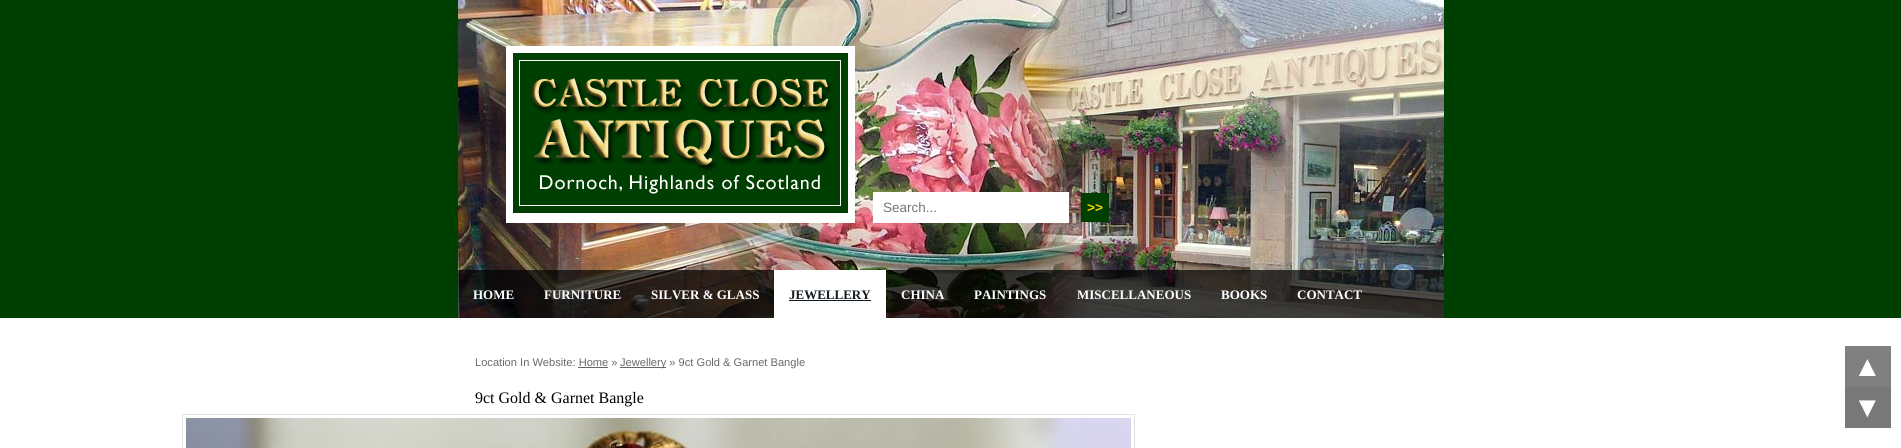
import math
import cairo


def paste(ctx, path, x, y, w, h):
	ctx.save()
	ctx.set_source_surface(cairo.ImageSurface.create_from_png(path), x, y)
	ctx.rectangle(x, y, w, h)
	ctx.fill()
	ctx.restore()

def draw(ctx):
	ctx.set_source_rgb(0, 0.247, 0.008)
	ctx.paint()
	paste(ctx, 'media/1.png', 458, 0, 986, 318)
	ctx.set_source_rgb(1, 1, 1)
	ctx.rectangle(506, 46, 349, 177)
	ctx.fill()
	paste(ctx, 'media/2.png', 513, 53, 335, 160)
	ctx.rectangle(873, 192, 196, 31)
	ctx.fill()
	ctx.select_font_face('Liberation Sans')
	ctx.set_font_size(13.5)
	ctx.set_source_rgb(0.459, 0.459, 0.459)
	ctx.move_to(883, 212)
	ctx.show_text('Search...')
	ctx.set_source_rgb(0, 0.247, 0.008)
	ctx.rectangle(1081, 193, 28, 29)
	ctx.fill()
	ctx.select_font_face('Liberation Sans', cairo.FONT_SLANT_NORMAL, cairo.FONT_WEIGHT_BOLD)
	ctx.set_source_rgb(1, 0.8, 0)
	ctx.move_to(1087, 212)
	ctx.show_text('>>')
	ctx.set_source_rgba(0, 0, 0, 0.7)
	ctx.rectangle(458, 270, 986, 48)
	ctx.fill()
	ctx.select_font_face('Liberation Serif', cairo.FONT_SLANT_NORMAL, cairo.FONT_WEIGHT_BOLD)
	ctx.set_font_size(13)
	ctx.set_source_rgb(1, 1, 1)
	for x, y, s in [
		(473, 299, 'HOME'),
		(544, 299, 'FURNITURE'),
		(651, 299, 'SILVER & GLASS'),
	]:
		ctx.move_to(x, y)
		ctx.show_text(s)
	ctx.rectangle(774, 270, 112, 48)
	ctx.fill()
	ctx.set_source_rgb(0.071, 0.106, 0.133)
	ctx.move_to(789, 299)
	ctx.show_text('JEWELLERY')
	ctx.rectangle(789, 300, 82, 1)
	ctx.fill()
	ctx.set_source_rgb(1, 1, 1)
	for x, y, s in [
		(901, 299, 'CHINA'),
		(974, 299, 'PAINTINGS'),
		(1077, 299, 'MISCELLANEOUS'),
		(1221, 299, 'BOOKS'),
		(1297, 299, 'CONTACT'),
	]:
		ctx.move_to(x, y)
		ctx.show_text(s)
	ctx.rectangle(0, 318, 1901, 130)
	ctx.fill()
	ctx.select_font_face('Liberation Sans')
	ctx.set_font_size(11.1)
	ctx.set_source_rgb(0.42, 0.404, 0.408)
	ctx.move_to(475, 366)
	ctx.show_text('Location In Website: Home »')
	ctx.rectangle(620, 367, 46, 1)
	ctx.fill()
	ctx.move_to(620, 366)
	ctx.show_text('Jewellery » 9ct Gold & Garnet Bangle')
	ctx.rectangle(578, 367, 30, 1)
	ctx.fill()
	ctx.select_font_face('Liberation Serif')
	ctx.set_font_size(16)
	ctx.set_source_rgb(0, 0, 0)
	ctx.move_to(475, 403)
	ctx.show_text('9ct Gold & Garnet Bangle')
	ctx.rectangle(182.5, 414.5, 952, 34)
	ctx.set_source_rgb(0.882, 0.882, 0.882)
	ctx.set_line_width(1)
	ctx.stroke()
	paste(ctx, 'media/3.png', 186, 418, 945, 30)
	ctx.set_source_rgb(0.502, 0.502, 0.502)
	ctx.rectangle(1845, 346, 46, 41)
	ctx.fill()
	ctx.set_font_size(29)
	ctx.set_source_rgb(1, 1, 1)
	ctx.move_to(1853, 376)
	ctx.show_text('▲')
	ctx.set_source_rgb(0.471, 0.471, 0.471)
	ctx.rectangle(1845, 387, 46, 41)
	ctx.fill()
	ctx.set_source_rgb(1, 1, 1)
	ctx.move_to(1853, 417)
	ctx.show_text('▼')


surface = cairo.ImageSurface(cairo.FORMAT_RGB24, 1901, 448)
ctx = cairo.Context(surface)
options = cairo.FontOptions()
options.set_hint_metrics(cairo.HINT_METRICS_OFF)
options.set_hint_style(cairo.HINT_STYLE_NONE)
ctx.set_font_options(options)
ctx.set_miter_limit(4)
draw(ctx)
surface.write_to_png('image.png')
